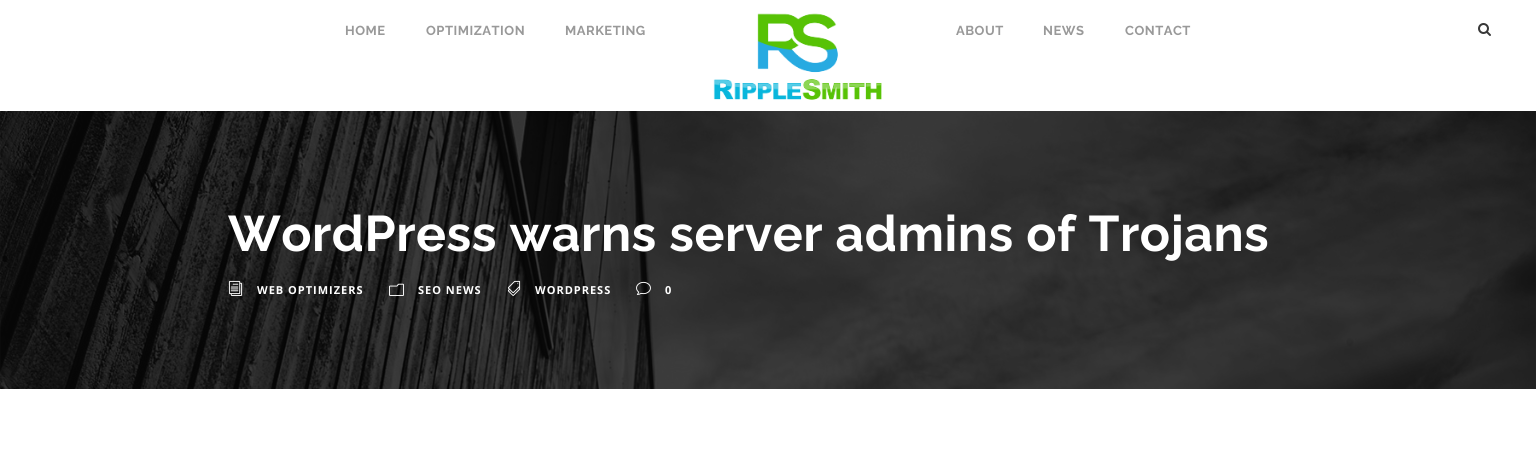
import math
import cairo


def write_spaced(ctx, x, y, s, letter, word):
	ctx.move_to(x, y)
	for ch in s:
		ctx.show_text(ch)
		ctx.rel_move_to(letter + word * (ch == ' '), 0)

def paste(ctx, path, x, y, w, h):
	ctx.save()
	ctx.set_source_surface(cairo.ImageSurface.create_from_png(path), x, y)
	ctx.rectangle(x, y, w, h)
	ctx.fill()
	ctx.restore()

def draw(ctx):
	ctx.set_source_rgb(1, 1, 1)
	ctx.paint()
	ctx.select_font_face('Raleway', cairo.FONT_SLANT_NORMAL, cairo.FONT_WEIGHT_BOLD)
	ctx.set_font_size(13)
	ctx.set_source_rgb(0.6, 0.6, 0.6)
	for x, y, s in [
		(345, 35, 'HOME'),
		(426, 35, 'OPTIMIZATION'),
		(565, 35, 'MARKETING'),
	]:
		write_spaced(ctx, x, y, s, 0.5, 0)
	paste(ctx, 'media/1.png', 713, 13, 169, 87)
	for x, y, s in [
		(956, 35, 'ABOUT'),
		(1043, 35, 'NEWS'),
		(1125, 35, 'CONTACT'),
	]:
		write_spaced(ctx, x, y, s, 0.5, 0)
	paste(ctx, 'media/2.png', 1478, 23, 13, 13)
	paste(ctx, 'media/3.png', 0, 111, 1536, 278)
	ctx.set_font_size(50)
	ctx.set_source_rgb(1, 1, 1)
	write_spaced(ctx, 228, 251, 'WordPress warns server admins of Trojans', 0.5, 0)
	paste(ctx, 'media/4.png', 228, 280, 15, 16)
	ctx.select_font_face('Open Sans', cairo.FONT_SLANT_NORMAL, cairo.FONT_WEIGHT_BOLD)
	ctx.set_font_size(11)
	write_spaced(ctx, 257, 294, 'WEB OPTIMIZERS', 1, 0)
	paste(ctx, 'media/5.png', 389, 283, 15, 13)
	write_spaced(ctx, 418, 294, 'SEO NEWS', 1, 0)
	paste(ctx, 'media/6.png', 507, 280, 14, 16)
	write_spaced(ctx, 535, 294, 'WORDPRESS', 1, 0)
	paste(ctx, 'media/7.png', 636, 281, 15, 14)
	write_spaced(ctx, 665, 294, '0', 1, 0)


surface = cairo.ImageSurface(cairo.FORMAT_RGB24, 1536, 465)
ctx = cairo.Context(surface)
options = cairo.FontOptions()
options.set_hint_metrics(cairo.HINT_METRICS_OFF)
options.set_hint_style(cairo.HINT_STYLE_NONE)
ctx.set_font_options(options)
ctx.set_miter_limit(4)
draw(ctx)
surface.write_to_png('image.png')
